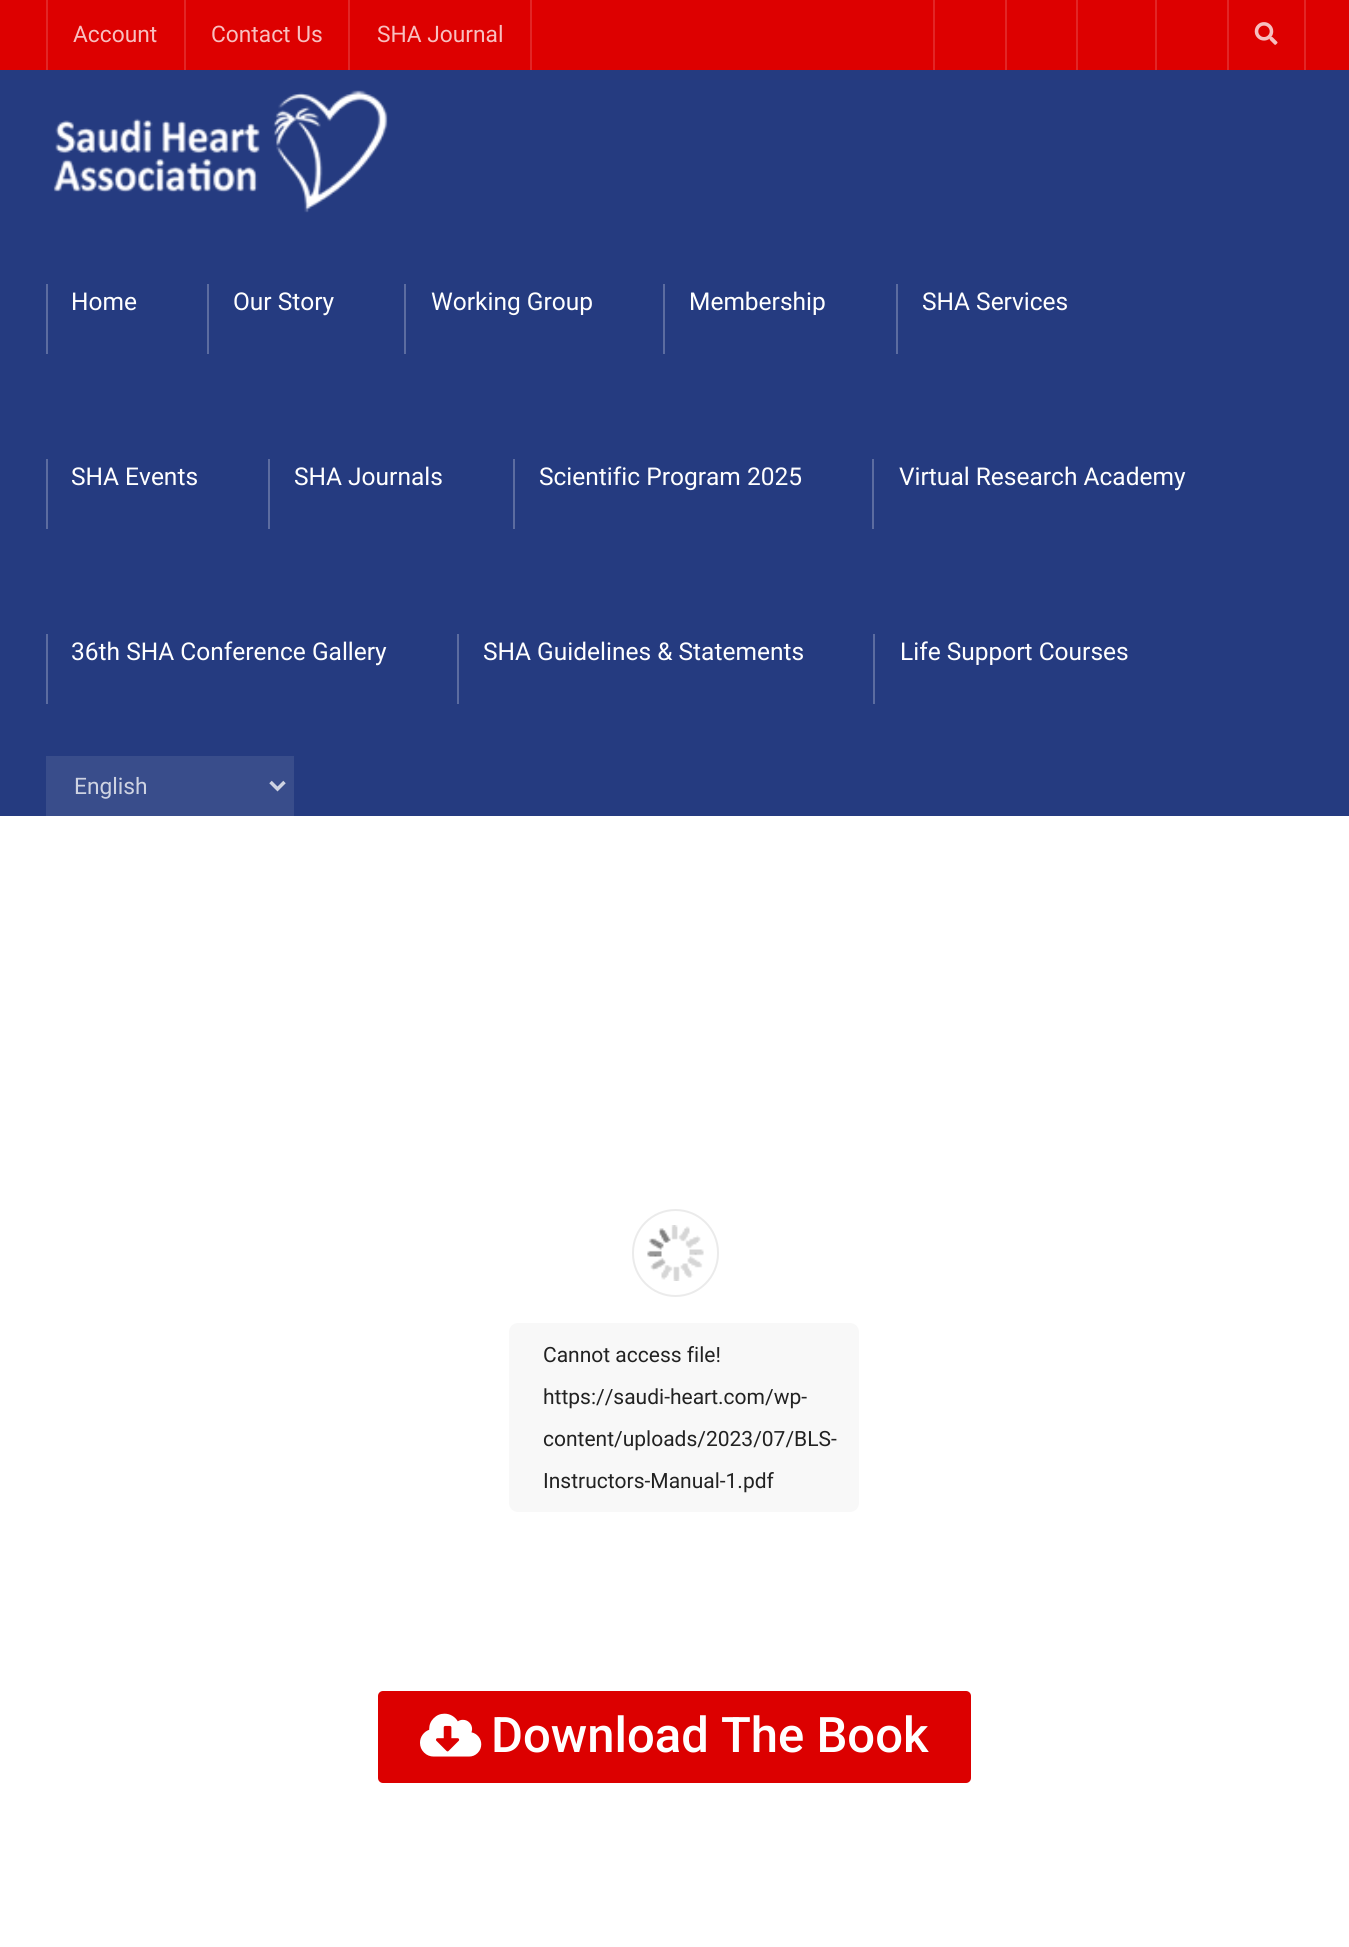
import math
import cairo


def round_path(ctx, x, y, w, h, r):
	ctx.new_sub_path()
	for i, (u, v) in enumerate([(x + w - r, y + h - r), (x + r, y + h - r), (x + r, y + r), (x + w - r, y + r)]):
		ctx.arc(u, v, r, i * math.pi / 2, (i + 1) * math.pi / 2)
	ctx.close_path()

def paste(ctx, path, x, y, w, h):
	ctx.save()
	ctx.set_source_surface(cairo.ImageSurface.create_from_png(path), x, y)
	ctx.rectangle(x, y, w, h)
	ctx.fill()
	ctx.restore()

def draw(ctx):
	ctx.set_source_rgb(1, 1, 1)
	ctx.paint()
	ctx.set_source_rgb(0.867, 0, 0)
	ctx.rectangle(0, 0, 1349, 70)
	ctx.fill()
	ctx.set_source_rgb(0.886, 0.149, 0.149)
	ctx.rectangle(46, 0, 2, 70)
	ctx.fill()
	ctx.select_font_face('Roboto')
	ctx.set_font_size(22.75)
	ctx.set_source_rgb(0.969, 0.749, 0.749)
	ctx.move_to(73, 42)
	ctx.show_text('Account')
	ctx.set_source_rgb(0.886, 0.149, 0.149)
	ctx.rectangle(184, 0, 2, 70)
	ctx.fill()
	ctx.set_source_rgb(0.969, 0.749, 0.749)
	ctx.move_to(211, 42)
	ctx.show_text('Contact Us')
	ctx.set_source_rgb(0.886, 0.149, 0.149)
	ctx.rectangle(530, 0, 2, 70)
	ctx.fill()
	ctx.rectangle(348, 0, 2, 70)
	ctx.fill()
	ctx.set_source_rgb(0.969, 0.749, 0.749)
	ctx.move_to(377, 42)
	ctx.show_text('SHA Journal')
	ctx.set_source_rgb(0.886, 0.149, 0.149)
	ctx.rectangle(933, 0, 2, 70)
	ctx.rectangle(1005, 0, 2, 70)
	ctx.rectangle(1076, 0, 2, 70)
	ctx.rectangle(1155, 0, 2, 70)
	ctx.rectangle(1304, 0, 2, 70)
	ctx.rectangle(1227, 0, 2, 70)
	ctx.fill()
	paste(ctx, 'media/1.png', 1254, 22, 24, 23)
	ctx.set_source_rgb(0.145, 0.231, 0.502)
	ctx.rectangle(0, 70, 1349, 746)
	ctx.fill()
	paste(ctx, 'media/2.png', 53, 90, 335, 123)
	ctx.set_source_rgb(0.361, 0.424, 0.627)
	ctx.rectangle(46, 284, 2, 70)
	ctx.fill()
	ctx.set_font_size(24.5)
	ctx.set_source_rgb(1, 1, 1)
	ctx.move_to(71, 310)
	ctx.show_text('Home')
	ctx.set_source_rgb(0.361, 0.424, 0.627)
	ctx.rectangle(207, 284, 2, 70)
	ctx.fill()
	ctx.set_source_rgb(1, 1, 1)
	ctx.move_to(233, 310)
	ctx.show_text('Our Story')
	ctx.set_source_rgb(0.361, 0.424, 0.627)
	ctx.rectangle(404, 284, 2, 70)
	ctx.fill()
	ctx.set_source_rgb(1, 1, 1)
	ctx.move_to(431, 310)
	ctx.show_text('Working Group')
	ctx.set_source_rgb(0.361, 0.424, 0.627)
	ctx.rectangle(663, 284, 2, 70)
	ctx.fill()
	ctx.set_source_rgb(1, 1, 1)
	ctx.move_to(689, 310)
	ctx.show_text('Membership')
	ctx.set_source_rgb(0.361, 0.424, 0.627)
	ctx.rectangle(896, 284, 2, 70)
	ctx.fill()
	ctx.set_source_rgb(1, 1, 1)
	ctx.move_to(922, 310)
	ctx.show_text('SHA Services')
	ctx.set_source_rgb(0.361, 0.424, 0.627)
	ctx.rectangle(46, 459, 2, 70)
	ctx.fill()
	ctx.set_source_rgb(1, 1, 1)
	ctx.move_to(71, 485)
	ctx.show_text('SHA Events')
	ctx.set_source_rgb(0.361, 0.424, 0.627)
	ctx.rectangle(268, 459, 2, 70)
	ctx.fill()
	ctx.set_source_rgb(1, 1, 1)
	ctx.move_to(294, 485)
	ctx.show_text('SHA Journals')
	ctx.set_source_rgb(0.361, 0.424, 0.627)
	ctx.rectangle(513, 459, 2, 70)
	ctx.fill()
	ctx.set_source_rgb(1, 1, 1)
	ctx.move_to(539, 485)
	ctx.show_text('Scientific Program 2025')
	ctx.set_source_rgb(0.361, 0.424, 0.627)
	ctx.rectangle(872, 459, 2, 70)
	ctx.fill()
	ctx.set_source_rgb(1, 1, 1)
	ctx.move_to(899, 485)
	ctx.show_text('Virtual Research Academy')
	ctx.set_source_rgb(0.361, 0.424, 0.627)
	ctx.rectangle(46, 634, 2, 70)
	ctx.fill()
	ctx.set_source_rgb(1, 1, 1)
	ctx.move_to(71, 660)
	ctx.show_text('36th SHA Conference Gallery')
	ctx.set_source_rgb(0.361, 0.424, 0.627)
	ctx.rectangle(457, 634, 2, 70)
	ctx.fill()
	ctx.set_source_rgb(1, 1, 1)
	ctx.move_to(483, 660)
	ctx.show_text('SHA Guidelines & Statements')
	ctx.set_source_rgb(0.361, 0.424, 0.627)
	ctx.rectangle(873, 634, 2, 70)
	ctx.fill()
	ctx.set_source_rgb(1, 1, 1)
	ctx.move_to(900, 660)
	ctx.show_text('Life Support Courses')
	ctx.set_source_rgb(0.224, 0.302, 0.545)
	ctx.rectangle(46, 756, 248, 60)
	ctx.fill()
	ctx.new_path()
	ctx.move_to(270.5, 782)
	ctx.line_to(277.5, 789)
	ctx.line_to(284.5, 782)
	ctx.set_source_rgb(0.808, 0.827, 0.886)
	ctx.set_line_width(3.5)
	ctx.stroke()
	ctx.set_font_size(22.75)
	ctx.move_to(74, 794)
	ctx.show_text('English')
	round_path(ctx, 633, 1210, 85, 86, 42.5)
	ctx.set_source_rgb(0.918, 0.918, 0.918)
	ctx.set_line_width(2)
	ctx.stroke()
	paste(ctx, 'media/3.png', 647, 1225, 57, 56)
	ctx.set_source_rgb(0.969, 0.969, 0.969)
	round_path(ctx, 509, 1323, 350, 189, 9)
	ctx.fill()
	ctx.set_font_size(21)
	ctx.set_source_rgb(0.133, 0.133, 0.133)
	for x, y, s in [
		(543, 1362, 'Cannot access file!'),
		(543, 1404, 'https://saudi-heart.com/wp-'),
		(543, 1446, 'content/uploads/2023/07/BLS-'),
		(543, 1488, 'Instructors-Manual-1.pdf'),
	]:
		ctx.move_to(x, y)
		ctx.show_text(s)
	ctx.set_source_rgb(0.863, 0, 0)
	round_path(ctx, 378, 1691, 593, 92, 5)
	ctx.fill()
	paste(ctx, 'media/4.png', 420, 1713, 62, 44)
	ctx.select_font_face('Roboto Medium')
	ctx.set_font_size(49)
	ctx.set_source_rgb(1, 1, 1)
	ctx.move_to(491, 1752)
	ctx.show_text('Download The Book')


surface = cairo.ImageSurface(cairo.FORMAT_RGB24, 1349, 1947)
ctx = cairo.Context(surface)
options = cairo.FontOptions()
options.set_hint_metrics(cairo.HINT_METRICS_OFF)
options.set_hint_style(cairo.HINT_STYLE_NONE)
ctx.set_font_options(options)
ctx.set_miter_limit(4)
draw(ctx)
surface.write_to_png('image.png')
